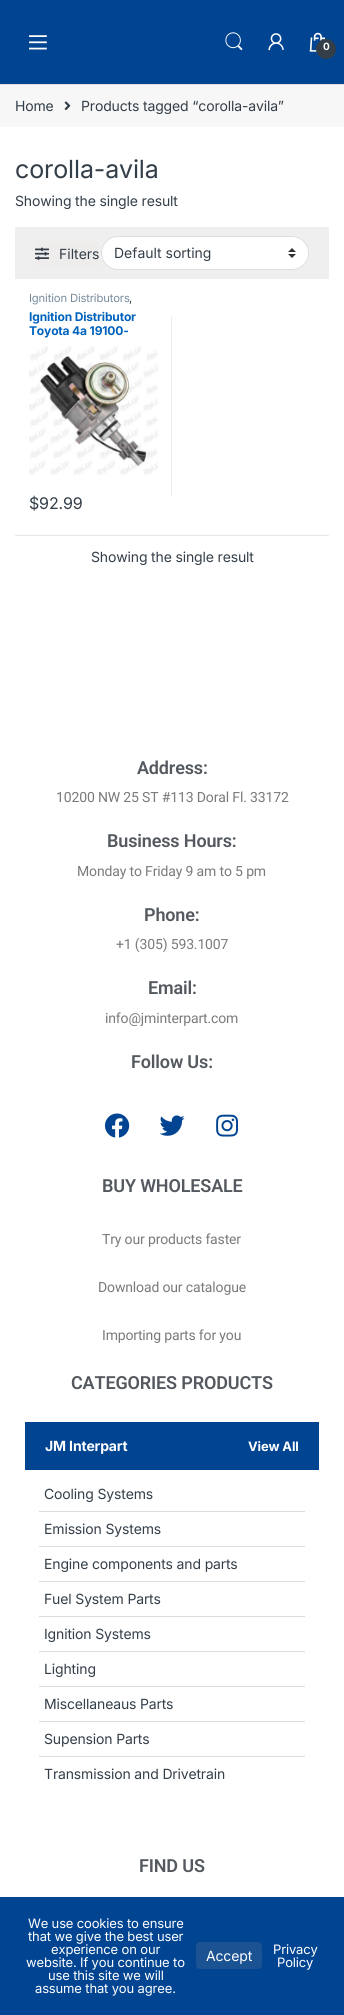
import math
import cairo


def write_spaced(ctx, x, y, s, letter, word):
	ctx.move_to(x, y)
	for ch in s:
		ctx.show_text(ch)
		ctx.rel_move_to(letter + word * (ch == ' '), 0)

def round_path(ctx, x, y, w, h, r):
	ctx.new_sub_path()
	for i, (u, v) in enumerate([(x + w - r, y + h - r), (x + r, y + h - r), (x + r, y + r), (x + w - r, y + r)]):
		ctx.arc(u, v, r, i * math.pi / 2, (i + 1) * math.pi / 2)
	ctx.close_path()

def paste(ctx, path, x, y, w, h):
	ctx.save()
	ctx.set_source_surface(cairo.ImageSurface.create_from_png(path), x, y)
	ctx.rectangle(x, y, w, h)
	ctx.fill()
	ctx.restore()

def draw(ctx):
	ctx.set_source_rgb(1, 1, 1)
	ctx.paint()
	ctx.set_source_rgb(0.867, 0.867, 0.867)
	ctx.rectangle(0, 84, 344, 1)
	ctx.fill()
	ctx.set_source_rgb(0.004, 0.267, 0.569)
	ctx.rectangle(0, 0, 344, 84)
	ctx.fill()
	paste(ctx, 'media/1.png', 29, 35, 18, 15)
	paste(ctx, 'media/2.png', 225, 32, 18, 19)
	paste(ctx, 'media/3.png', 268, 33, 16, 18)
	paste(ctx, 'media/4.png', 309, 32, 17, 20)
	ctx.set_source_rgb(0.2, 0.243, 0.282)
	ctx.arc(326, 49, 10, 0, 2 * math.pi)
	ctx.fill()
	ctx.select_font_face('Inter', cairo.FONT_SLANT_NORMAL, cairo.FONT_WEIGHT_BOLD)
	ctx.set_font_size(10)
	ctx.set_source_rgb(1, 1, 1)
	write_spaced(ctx, 323, 50, '0', -0.15, 0)
	ctx.set_source_rgb(0.969, 0.965, 0.965)
	ctx.rectangle(0, 85, 344, 42)
	ctx.fill()
	ctx.select_font_face('Inter')
	ctx.set_font_size(14)
	ctx.set_source_rgb(0.2, 0.243, 0.282)
	write_spaced(ctx, 15, 111, 'Home', -0.15, 0)
	paste(ctx, 'media/5.png', 64, 101, 7, 10)
	write_spaced(ctx, 81, 111, 'Products tagged “corolla-avila”', -0.15, 0)
	ctx.set_font_size(25)
	write_spaced(ctx, 15, 178, 'corolla-avila', -0.15, 0)
	ctx.set_font_size(14)
	write_spaced(ctx, 15, 206, 'Showing the single result', -0.15, 0)
	ctx.set_source_rgb(0.937, 0.937, 0.937)
	ctx.rectangle(15, 227, 314, 52)
	ctx.fill()
	ctx.set_source_rgb(0.937, 0.925, 0.925)
	ctx.rectangle(35, 242, 64, 24)
	ctx.fill()
	paste(ctx, 'media/6.png', 35, 247, 14, 13)
	ctx.set_source_rgb(0.2, 0.243, 0.282)
	ctx.move_to(59, 259)
	ctx.show_text('Filters')
	ctx.set_source_rgb(1, 1, 1)
	round_path(ctx, 101, 236, 208, 34, 17)
	ctx.fill()
	paste(ctx, 'media/7.png', 288, 248, 8, 10)
	round_path(ctx, 101.5, 236.5, 207, 33, 16.5)
	ctx.set_source_rgb(0.867, 0.867, 0.867)
	ctx.set_line_width(1)
	ctx.stroke()
	ctx.set_source_rgb(0.2, 0.243, 0.282)
	ctx.move_to(114, 258)
	ctx.show_text('Default sorting')
	ctx.set_font_size(11.25)
	ctx.set_source_rgb(0.463, 0.545, 0.62)
	write_spaced(ctx, 29, 302, 'Ignition Distributors', -0.15, 0)
	ctx.set_source_rgb(0.2, 0.243, 0.282)
	write_spaced(ctx, 129, 302, ',', -0.15, 0)
	ctx.select_font_face('Inter', cairo.FONT_SLANT_NORMAL, cairo.FONT_WEIGHT_BOLD)
	ctx.set_font_size(12)
	ctx.set_source_rgb(0, 0.384, 0.741)
	write_spaced(ctx, 29, 321, 'Ignition Distributor', -0.15, 0)
	write_spaced(ctx, 29, 335, 'Toyota 4a 19100-', -0.15, 0)
	paste(ctx, 'media/8.png', 29, 346, 129, 129)
	ctx.select_font_face('Inter')
	ctx.set_font_size(16)
	ctx.set_source_rgb(0.2, 0.243, 0.282)
	write_spaced(ctx, 29, 509, '$92.99', -0.15, 0)
	ctx.set_source_rgb(0.918, 0.918, 0.918)
	ctx.rectangle(171, 317, 1, 179)
	ctx.fill()
	ctx.set_source_rgb(0.906, 0.906, 0.906)
	ctx.rectangle(15, 535, 314, 1)
	ctx.fill()
	ctx.set_font_size(14)
	ctx.set_source_rgb(0.2, 0.243, 0.282)
	write_spaced(ctx, 91, 562, 'Showing the single result', -0.15, 0)
	ctx.select_font_face('Roboto SemiBold')
	ctx.set_font_size(18)
	ctx.set_source_rgb(0.329, 0.349, 0.373)
	write_spaced(ctx, 137, 774, 'Address:', -0.15, 0)
	ctx.select_font_face('Roboto')
	ctx.set_font_size(14)
	ctx.set_source_rgb(0.478, 0.478, 0.478)
	write_spaced(ctx, 56, 802, '10200 NW 25 ST #113 Doral Fl. 33172', -0.15, 0)
	ctx.select_font_face('Roboto SemiBold')
	ctx.set_font_size(18)
	ctx.set_source_rgb(0.329, 0.349, 0.373)
	write_spaced(ctx, 107, 847, 'Business Hours:', -0.15, 0)
	ctx.select_font_face('Roboto')
	ctx.set_font_size(14)
	ctx.set_source_rgb(0.478, 0.478, 0.478)
	write_spaced(ctx, 77, 876, 'Monday to Friday 9 am to 5 pm', -0.15, 0)
	ctx.select_font_face('Roboto SemiBold')
	ctx.set_font_size(18)
	ctx.set_source_rgb(0.329, 0.349, 0.373)
	write_spaced(ctx, 144, 921, 'Phone:', -0.15, 0)
	ctx.select_font_face('Roboto')
	ctx.set_font_size(14)
	ctx.set_source_rgb(0.478, 0.478, 0.478)
	write_spaced(ctx, 116, 949, '+1 (305) 593.1007', -0.15, 0)
	ctx.select_font_face('Roboto SemiBold')
	ctx.set_font_size(18)
	ctx.set_source_rgb(0.329, 0.349, 0.373)
	write_spaced(ctx, 148, 994, 'Email:', -0.15, 0)
	ctx.select_font_face('Roboto')
	ctx.set_font_size(14)
	ctx.set_source_rgb(0.478, 0.478, 0.478)
	write_spaced(ctx, 105, 1023, 'info@jminterpart.com', -0.15, 0)
	ctx.select_font_face('Roboto SemiBold')
	ctx.set_font_size(18)
	ctx.set_source_rgb(0.329, 0.349, 0.373)
	write_spaced(ctx, 131, 1068, 'Follow Us:', -0.15, 0)
	paste(ctx, 'media/9.png', 104, 1113, 26, 25)
	paste(ctx, 'media/10.png', 159, 1115, 26, 21)
	paste(ctx, 'media/11.png', 216, 1114, 23, 23)
	write_spaced(ctx, 102, 1192, 'BUY WHOLESALE', -0.15, 0)
	ctx.select_font_face('Roboto')
	ctx.set_font_size(14)
	ctx.set_source_rgb(0.478, 0.478, 0.478)
	for x, y, s in [
		(102, 1244, 'Try our products faster'),
		(98, 1292, 'Download our catalogue'),
		(102, 1340, 'Importing parts for you'),
	]:
		write_spaced(ctx, x, y, s, -0.15, 0)
	ctx.select_font_face('Roboto SemiBold')
	ctx.set_font_size(18)
	ctx.set_source_rgb(0.329, 0.349, 0.373)
	write_spaced(ctx, 71, 1389, 'CATEGORIES PRODUCTS', -0.15, 0)
	ctx.set_source_rgb(0.004, 0.267, 0.569)
	ctx.rectangle(25, 1422, 294, 48)
	ctx.fill()
	ctx.select_font_face('Inter', cairo.FONT_SLANT_NORMAL, cairo.FONT_WEIGHT_BOLD)
	ctx.set_font_size(14)
	ctx.set_source_rgb(1, 1, 1)
	write_spaced(ctx, 45, 1451, 'JM Interpart', -0.15, 0)
	ctx.set_font_size(13)
	write_spaced(ctx, 248, 1451, 'View All', -0.15, 0)
	ctx.set_source_rgb(0.867, 0.867, 0.867)
	ctx.rectangle(39, 1511, 266, 1)
	ctx.fill()
	ctx.select_font_face('Inter')
	ctx.set_font_size(14)
	ctx.set_source_rgb(0.2, 0.243, 0.282)
	write_spaced(ctx, 44, 1499, 'Cooling Systems', -0.15, 0)
	ctx.set_source_rgb(0.867, 0.867, 0.867)
	ctx.rectangle(39, 1546, 266, 1)
	ctx.fill()
	ctx.set_source_rgb(0.2, 0.243, 0.282)
	write_spaced(ctx, 44, 1534, 'Emission Systems', -0.15, 0)
	ctx.set_source_rgb(0.867, 0.867, 0.867)
	ctx.rectangle(39, 1581, 266, 1)
	ctx.fill()
	ctx.set_source_rgb(0.2, 0.243, 0.282)
	write_spaced(ctx, 44, 1569, 'Engine components and parts', -0.15, 0)
	ctx.set_source_rgb(0.867, 0.867, 0.867)
	ctx.rectangle(39, 1616, 266, 1)
	ctx.fill()
	ctx.set_source_rgb(0.2, 0.243, 0.282)
	write_spaced(ctx, 44, 1604, 'Fuel System Parts', -0.15, 0)
	ctx.set_source_rgb(0.867, 0.867, 0.867)
	ctx.rectangle(39, 1651, 266, 1)
	ctx.fill()
	ctx.set_source_rgb(0.2, 0.243, 0.282)
	write_spaced(ctx, 44, 1639, 'Ignition Systems', -0.15, 0)
	ctx.set_source_rgb(0.867, 0.867, 0.867)
	ctx.rectangle(39, 1686, 266, 1)
	ctx.fill()
	ctx.set_source_rgb(0.2, 0.243, 0.282)
	write_spaced(ctx, 44, 1674, 'Lighting', -0.15, 0)
	ctx.set_source_rgb(0.867, 0.867, 0.867)
	ctx.rectangle(39, 1721, 266, 1)
	ctx.fill()
	ctx.set_source_rgb(0.2, 0.243, 0.282)
	write_spaced(ctx, 44, 1709, 'Miscellaneaus Parts', -0.15, 0)
	ctx.set_source_rgb(0.867, 0.867, 0.867)
	ctx.rectangle(39, 1756, 266, 1)
	ctx.fill()
	ctx.set_source_rgb(0.2, 0.243, 0.282)
	write_spaced(ctx, 44, 1744, 'Supension Parts', -0.15, 0)
	write_spaced(ctx, 44, 1779, 'Transmission and Drivetrain', -0.15, 0)
	ctx.select_font_face('Roboto SemiBold')
	ctx.set_font_size(18)
	ctx.set_source_rgb(0.329, 0.349, 0.373)
	write_spaced(ctx, 139, 1872, 'FIND US', -0.15, 0)
	ctx.set_source_rgb(0.004, 0.267, 0.569)
	ctx.rectangle(0, 1897, 344, 118)
	ctx.fill()
	ctx.select_font_face('Inter')
	ctx.set_font_size(13)
	ctx.set_source_rgb(1, 1, 1)
	for x, y, s in [
		(28, 1928, 'We use cookies to ensure'),
		(28, 1941, 'that we give the best user'),
		(51, 1954, 'experience on our'),
		(26, 1967, 'website. If you continue to'),
		(48, 1980, 'use this site we will'),
		(35, 1993, 'assume that you agree.'),
	]:
		write_spaced(ctx, x, y, s, -0.15, 0)
	ctx.set_source_rgb(0.106, 0.322, 0.569)
	round_path(ctx, 195.5, 1941.5, 67, 28, 4.5)
	ctx.fill_preserve()
	ctx.set_source_rgb(0.004, 0.267, 0.569)
	ctx.stroke()
	ctx.set_font_size(14)
	ctx.set_source_rgb(1, 1, 1)
	write_spaced(ctx, 206, 1961, 'Accept', -0.15, 0)
	ctx.set_font_size(13)
	write_spaced(ctx, 273, 1954, 'Privacy', -0.15, 0)
	write_spaced(ctx, 277, 1967, 'Policy', -0.15, 0)


surface = cairo.ImageSurface(cairo.FORMAT_RGB24, 344, 2015)
ctx = cairo.Context(surface)
options = cairo.FontOptions()
options.set_hint_metrics(cairo.HINT_METRICS_OFF)
options.set_hint_style(cairo.HINT_STYLE_NONE)
ctx.set_font_options(options)
ctx.set_miter_limit(4)
draw(ctx)
surface.write_to_png('image.png')
